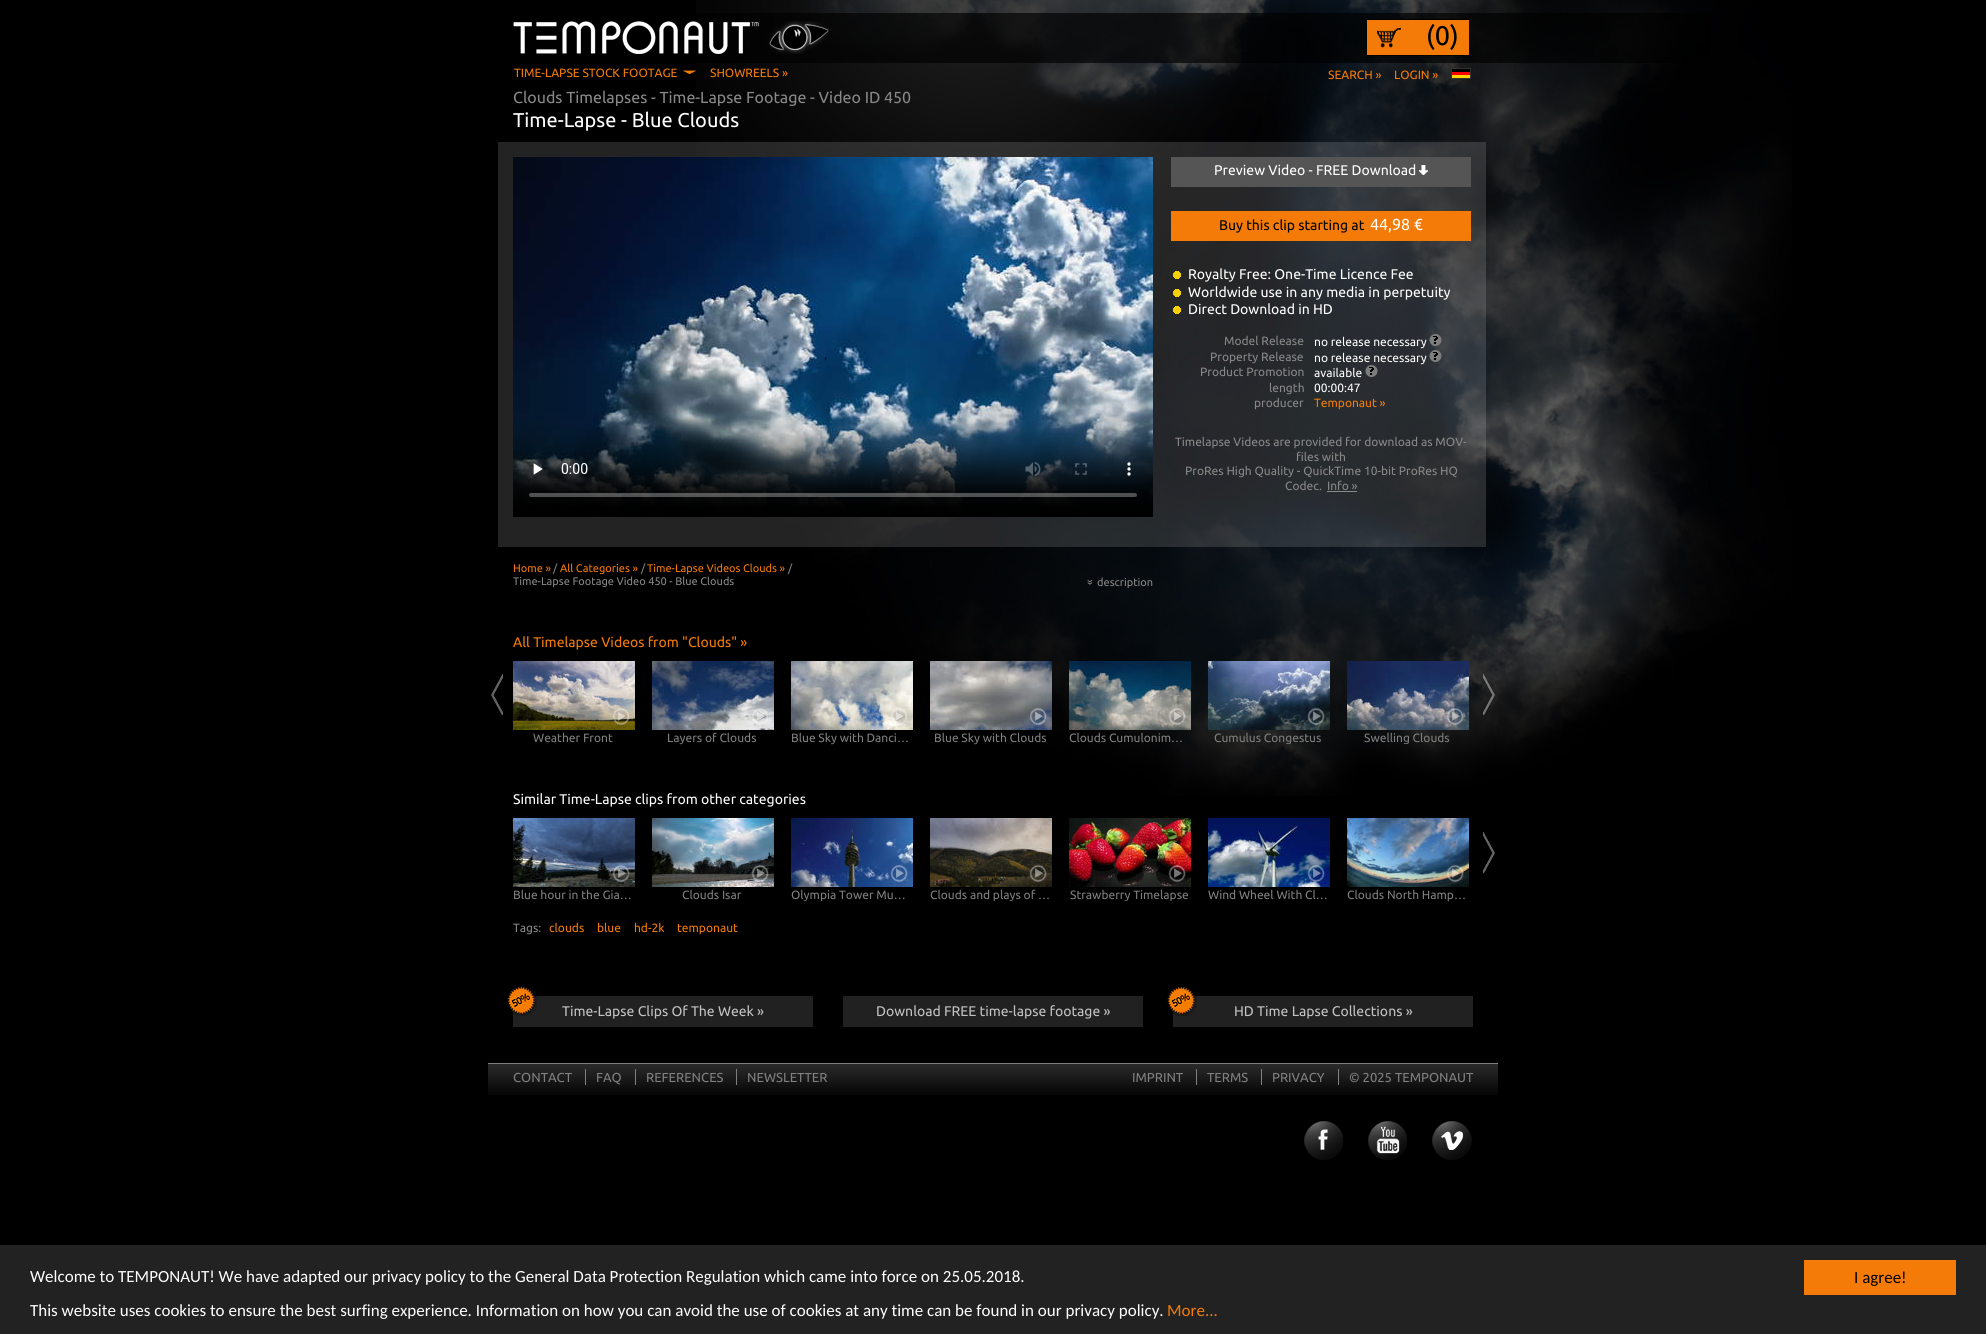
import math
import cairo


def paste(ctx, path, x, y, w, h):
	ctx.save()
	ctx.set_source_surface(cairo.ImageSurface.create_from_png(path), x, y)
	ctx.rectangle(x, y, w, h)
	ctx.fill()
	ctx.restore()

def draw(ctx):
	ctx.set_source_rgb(0, 0, 0)
	ctx.paint()
	paste(ctx, 'media/1.png', 696, 0, 1096, 796)
	ctx.set_source_rgba(0, 0, 0, 0.67)
	ctx.rectangle(696, 13, 1015, 50)
	ctx.fill()
	paste(ctx, 'media/2.png', 513, 21, 316, 33)
	ctx.set_source_rgb(0.957, 0.482, 0.031)
	ctx.rectangle(1367, 20, 102, 35)
	ctx.fill()
	paste(ctx, 'media/3.png', 1377, 28, 24, 20)
	ctx.rectangle(1366.5, 19.5, 103, 36)
	ctx.set_source_rgb(0, 0, 0)
	ctx.set_line_width(1)
	ctx.stroke()
	ctx.select_font_face('Ubuntu')
	ctx.set_font_size(27)
	ctx.move_to(1426, 45)
	ctx.show_text('(0)')
	ctx.set_font_size(12)
	ctx.set_source_rgb(0.957, 0.482, 0.031)
	ctx.move_to(514, 77)
	ctx.show_text('TIME-LAPSE STOCK FOOTAGE')
	paste(ctx, 'media/4.png', 682, 70, 15, 5)
	for x, y, s in [
		(710, 77, 'SHOWREELS »'),
		(1328, 79, 'SEARCH »'),
		(1394, 79, 'LOGIN »'),
	]:
		ctx.move_to(x, y)
		ctx.show_text(s)
	paste(ctx, 'media/5.png', 1451, 68, 20, 11)
	ctx.set_font_size(16)
	ctx.set_source_rgb(0.533, 0.533, 0.533)
	ctx.move_to(513, 103)
	ctx.show_text('Clouds Timelapses - Time-Lapse Footage - Video ID 450')
	ctx.set_font_size(20)
	ctx.set_source_rgb(1, 1, 1)
	ctx.move_to(513, 127)
	ctx.show_text('Time-Lapse - Blue Clouds')
	ctx.set_source_rgba(1, 1, 1, 0.14)
	ctx.rectangle(498, 142, 988, 405)
	ctx.fill()
	paste(ctx, 'media/6.png', 513, 157, 640, 360)
	ctx.set_source_rgb(0.333, 0.333, 0.333)
	ctx.rectangle(1171, 157, 300, 30)
	ctx.fill()
	ctx.set_font_size(14)
	ctx.set_source_rgb(1, 1, 1)
	ctx.move_to(1214, 175)
	ctx.show_text('Preview Video - FREE Download')
	paste(ctx, 'media/7.png', 1419, 165, 9, 10)
	ctx.set_source_rgb(0.957, 0.482, 0.031)
	ctx.rectangle(1171, 211, 300, 30)
	ctx.fill()
	ctx.set_source_rgb(0, 0, 0)
	ctx.move_to(1219, 230)
	ctx.show_text('Buy this clip starting at')
	ctx.set_font_size(16)
	ctx.set_source_rgb(1, 1, 1)
	ctx.move_to(1370, 230)
	ctx.show_text('44,98 €')
	paste(ctx, 'media/8.png', 1173, 271, 8, 8)
	ctx.set_font_size(14)
	ctx.move_to(1188, 279)
	ctx.show_text('Royalty Free: One-Time Licence Fee')
	paste(ctx, 'media/9.png', 1173, 289, 8, 8)
	ctx.move_to(1188, 297)
	ctx.show_text('Worldwide use in any media in perpetuity')
	paste(ctx, 'media/10.png', 1173, 306, 8, 8)
	ctx.move_to(1188, 314)
	ctx.show_text('Direct Download in HD')
	ctx.set_font_size(12)
	ctx.set_source_rgb(0.533, 0.533, 0.533)
	ctx.move_to(1224, 345)
	ctx.show_text('Model Release')
	ctx.set_source_rgb(1, 1, 1)
	ctx.move_to(1314, 346)
	ctx.show_text('no release necessary')
	paste(ctx, 'media/11.png', 1429, 334, 13, 12)
	ctx.set_source_rgb(0.533, 0.533, 0.533)
	ctx.move_to(1210, 361)
	ctx.show_text('Property Release')
	ctx.set_source_rgb(1, 1, 1)
	ctx.move_to(1314, 362)
	ctx.show_text('no release necessary')
	paste(ctx, 'media/12.png', 1429, 350, 13, 12)
	ctx.set_source_rgb(0.533, 0.533, 0.533)
	ctx.move_to(1200, 376)
	ctx.show_text('Product Promotion')
	ctx.set_source_rgb(1, 1, 1)
	ctx.move_to(1314, 377)
	ctx.show_text('available')
	paste(ctx, 'media/13.png', 1365, 365, 13, 12)
	ctx.set_source_rgb(0.533, 0.533, 0.533)
	ctx.move_to(1269, 392)
	ctx.show_text('length')
	ctx.set_source_rgb(1, 1, 1)
	ctx.move_to(1314, 392)
	ctx.show_text('00:00:47')
	ctx.set_source_rgb(0.533, 0.533, 0.533)
	ctx.move_to(1254, 407)
	ctx.show_text('producer')
	ctx.set_source_rgb(0.957, 0.482, 0.031)
	ctx.move_to(1314, 407)
	ctx.show_text('Temponaut »')
	ctx.set_source_rgb(0.533, 0.533, 0.533)
	for x, y, s in [
		(1175, 446, 'Timelapse Videos are provided for download as MOV-'),
		(1296, 461, 'files with'),
		(1185, 475, 'ProRes High Quality - QuickTime 10-bit ProRes HQ'),
		(1285, 490, 'Codec.'),
		(1327, 490, 'Info »'),
	]:
		ctx.move_to(x, y)
		ctx.show_text(s)
	ctx.rectangle(1327, 491, 30, 1)
	ctx.fill()
	ctx.set_font_size(11)
	ctx.set_source_rgb(0.957, 0.482, 0.031)
	ctx.move_to(513, 572)
	ctx.show_text('Home »')
	ctx.set_source_rgb(0.533, 0.533, 0.533)
	ctx.move_to(553, 572)
	ctx.show_text('/')
	ctx.set_source_rgb(0.957, 0.482, 0.031)
	ctx.move_to(560, 572)
	ctx.show_text('All Categories »')
	ctx.set_source_rgb(0.533, 0.533, 0.533)
	ctx.move_to(641, 572)
	ctx.show_text('/')
	ctx.set_source_rgb(0.957, 0.482, 0.031)
	ctx.move_to(647, 572)
	ctx.show_text('Time-Lapse Videos Clouds »')
	ctx.set_source_rgb(0.533, 0.533, 0.533)
	ctx.move_to(788, 572)
	ctx.show_text('/')
	ctx.move_to(513, 585)
	ctx.show_text('Time-Lapse Footage Video 450 - Blue Clouds')
	ctx.save()
	ctx.translate(1093, 585)
	ctx.rotate(-90 * math.pi / 180)
	ctx.move_to(0, 0)
	ctx.show_text('«')
	ctx.restore()
	ctx.move_to(1097, 586)
	ctx.show_text('description')
	ctx.set_font_size(14)
	ctx.set_source_rgb(0.957, 0.482, 0.031)
	ctx.move_to(513, 647)
	ctx.show_text('All Timelapse Videos from "Clouds" »')
	paste(ctx, 'media/14.png', 491, 674, 12, 41)
	paste(ctx, 'media/15.png', 1483, 674, 12, 41)
	paste(ctx, 'media/16.png', 513, 661, 122, 69)
	paste(ctx, 'media/17.png', 612, 708, 18, 18)
	ctx.set_font_size(12)
	ctx.set_source_rgb(0.502, 0.502, 0.502)
	ctx.move_to(533, 742)
	ctx.show_text('Weather Front')
	paste(ctx, 'media/18.png', 652, 661, 122, 69)
	paste(ctx, 'media/19.png', 752, 708, 17, 17)
	ctx.move_to(667, 742)
	ctx.show_text('Layers of Clouds')
	paste(ctx, 'media/20.png', 791, 661, 122, 69)
	paste(ctx, 'media/21.png', 891, 708, 17, 17)
	ctx.move_to(791, 742)
	ctx.show_text('Blue Sky with Danci…')
	paste(ctx, 'media/22.png', 930, 661, 122, 69)
	paste(ctx, 'media/23.png', 1029, 707, 18, 19)
	ctx.move_to(934, 742)
	ctx.show_text('Blue Sky with Clouds')
	paste(ctx, 'media/24.png', 1069, 661, 122, 69)
	paste(ctx, 'media/25.png', 1168, 708, 18, 18)
	ctx.move_to(1069, 742)
	ctx.show_text('Clouds Cumulonim…')
	paste(ctx, 'media/26.png', 1208, 661, 122, 69)
	paste(ctx, 'media/27.png', 1307, 707, 18, 19)
	ctx.save()
	ctx.rectangle(1208, 732, 120, 12)
	ctx.clip()
	ctx.move_to(1214, 742)
	ctx.show_text('Cumulus Congestus')
	ctx.restore()
	paste(ctx, 'media/28.png', 1347, 661, 122, 69)
	paste(ctx, 'media/29.png', 1446, 707, 18, 19)
	ctx.save()
	ctx.rectangle(1347, 732, 120, 12)
	ctx.clip()
	ctx.move_to(1364, 742)
	ctx.show_text('Swelling Clouds')
	ctx.restore()
	ctx.set_font_size(14)
	ctx.set_source_rgb(1, 1, 1)
	ctx.move_to(513, 804)
	ctx.show_text('Similar Time-Lapse clips from other categories')
	paste(ctx, 'media/30.png', 1483, 832, 12, 41)
	paste(ctx, 'media/31.png', 513, 818, 122, 69)
	paste(ctx, 'media/32.png', 612, 864, 18, 19)
	ctx.set_font_size(12)
	ctx.set_source_rgb(0.502, 0.502, 0.502)
	ctx.move_to(513, 899)
	ctx.show_text('Blue hour in the Gia…')
	paste(ctx, 'media/33.png', 652, 818, 122, 69)
	paste(ctx, 'media/34.png', 751, 864, 18, 19)
	ctx.move_to(682, 899)
	ctx.show_text('Clouds Isar')
	paste(ctx, 'media/35.png', 791, 818, 122, 69)
	paste(ctx, 'media/36.png', 890, 864, 18, 19)
	ctx.save()
	ctx.rectangle(791, 889, 120, 12)
	ctx.clip()
	ctx.move_to(791, 899)
	ctx.show_text('Olympia Tower Mu…')
	ctx.restore()
	paste(ctx, 'media/37.png', 930, 818, 122, 69)
	paste(ctx, 'media/38.png', 1029, 864, 18, 19)
	ctx.save()
	ctx.rectangle(930, 889, 120, 12)
	ctx.clip()
	ctx.move_to(930, 899)
	ctx.show_text('Clouds and plays of …')
	ctx.restore()
	paste(ctx, 'media/39.png', 1069, 818, 122, 69)
	paste(ctx, 'media/40.png', 1168, 864, 18, 19)
	ctx.save()
	ctx.rectangle(1069, 889, 120, 12)
	ctx.clip()
	ctx.move_to(1070, 899)
	ctx.show_text('Strawberry Timelapse')
	ctx.restore()
	paste(ctx, 'media/41.png', 1208, 818, 122, 69)
	paste(ctx, 'media/42.png', 1307, 864, 18, 19)
	ctx.move_to(1208, 899)
	ctx.show_text('Wind Wheel With Cl…')
	paste(ctx, 'media/43.png', 1347, 818, 122, 69)
	paste(ctx, 'media/44.png', 1446, 864, 18, 19)
	ctx.move_to(1347, 899)
	ctx.show_text('Clouds North Hamp…')
	ctx.set_source_rgb(0.533, 0.533, 0.533)
	ctx.move_to(513, 932)
	ctx.show_text('Tags:')
	ctx.set_source_rgb(0.957, 0.482, 0.031)
	for x, y, s in [
		(549, 932, 'clouds'),
		(597, 932, 'blue'),
		(634, 932, 'hd-2k'),
		(677, 932, 'temponaut'),
	]:
		ctx.move_to(x, y)
		ctx.show_text(s)
	ctx.set_source_rgb(0.129, 0.129, 0.129)
	ctx.rectangle(513, 996, 300, 31)
	ctx.fill()
	paste(ctx, 'media/45.png', 507, 986, 30, 30)
	ctx.set_font_size(14)
	ctx.set_source_rgb(0.761, 0.761, 0.761)
	ctx.move_to(562, 1016)
	ctx.show_text('Time-Lapse Clips Of The Week »')
	ctx.set_source_rgb(0.129, 0.129, 0.129)
	ctx.rectangle(843, 996, 300, 31)
	ctx.fill()
	ctx.set_source_rgb(0.761, 0.761, 0.761)
	ctx.move_to(876, 1016)
	ctx.show_text('Download FREE time-lapse footage »')
	ctx.set_source_rgb(0.129, 0.129, 0.129)
	ctx.rectangle(1173, 996, 300, 31)
	ctx.fill()
	paste(ctx, 'media/45.png', 1167, 986, 30, 30)
	ctx.set_source_rgb(0.761, 0.761, 0.761)
	ctx.move_to(1234, 1016)
	ctx.show_text('HD Time Lapse Collections »')
	paste(ctx, 'media/46.png', 488, 1064, 1010, 31)
	ctx.set_source_rgb(0.502, 0.502, 0.502)
	ctx.rectangle(488, 1063, 1010, 1)
	ctx.fill()
	ctx.set_font_size(13)
	ctx.move_to(513, 1082)
	ctx.show_text('CONTACT')
	ctx.rectangle(585, 1069, 1, 16)
	ctx.fill()
	ctx.move_to(596, 1082)
	ctx.show_text('FAQ')
	ctx.rectangle(635, 1069, 1, 16)
	ctx.fill()
	ctx.move_to(646, 1082)
	ctx.show_text('REFERENCES')
	ctx.rectangle(736, 1069, 1, 16)
	ctx.fill()
	ctx.move_to(747, 1082)
	ctx.show_text('NEWSLETTER')
	ctx.move_to(1132, 1082)
	ctx.show_text('IMPRINT')
	ctx.rectangle(1196, 1069, 1, 16)
	ctx.fill()
	ctx.move_to(1207, 1082)
	ctx.show_text('TERMS')
	ctx.rectangle(1261, 1069, 1, 16)
	ctx.fill()
	ctx.move_to(1272, 1082)
	ctx.show_text('PRIVACY')
	ctx.rectangle(1338, 1069, 1, 16)
	ctx.fill()
	ctx.move_to(1349, 1082)
	ctx.show_text('© 2025 TEMPONAUT')
	paste(ctx, 'media/47.png', 1304, 1121, 39, 39)
	paste(ctx, 'media/48.png', 1368, 1121, 39, 39)
	paste(ctx, 'media/49.png', 1432, 1121, 40, 39)
	ctx.set_source_rgb(0.133, 0.133, 0.133)
	ctx.rectangle(0, 1245, 1986, 89)
	ctx.fill()
	ctx.select_font_face('Carlito')
	ctx.set_font_size(17)
	ctx.set_source_rgb(1, 1, 1)
	ctx.move_to(30, 1282)
	ctx.show_text('Welcome to TEMPONAUT! We have adapted our privacy policy to the General Data Protection Regulation which came into force on 25.05.2018.')
	ctx.move_to(30, 1316)
	ctx.show_text('This website uses cookies to ensure the best surfing experience. Information on how you can avoid the use of cookies at any time can be found in our privacy policy.')
	ctx.set_source_rgb(0.957, 0.482, 0.031)
	ctx.move_to(1167, 1316)
	ctx.show_text('More...')
	ctx.rectangle(1804, 1260, 152, 35)
	ctx.fill()
	ctx.set_source_rgb(0, 0, 0)
	ctx.move_to(1854, 1283)
	ctx.show_text('I agree!')


surface = cairo.ImageSurface(cairo.FORMAT_RGB24, 1986, 1334)
ctx = cairo.Context(surface)
options = cairo.FontOptions()
options.set_hint_metrics(cairo.HINT_METRICS_OFF)
options.set_hint_style(cairo.HINT_STYLE_NONE)
ctx.set_font_options(options)
ctx.set_miter_limit(4)
draw(ctx)
surface.write_to_png('image.png')
